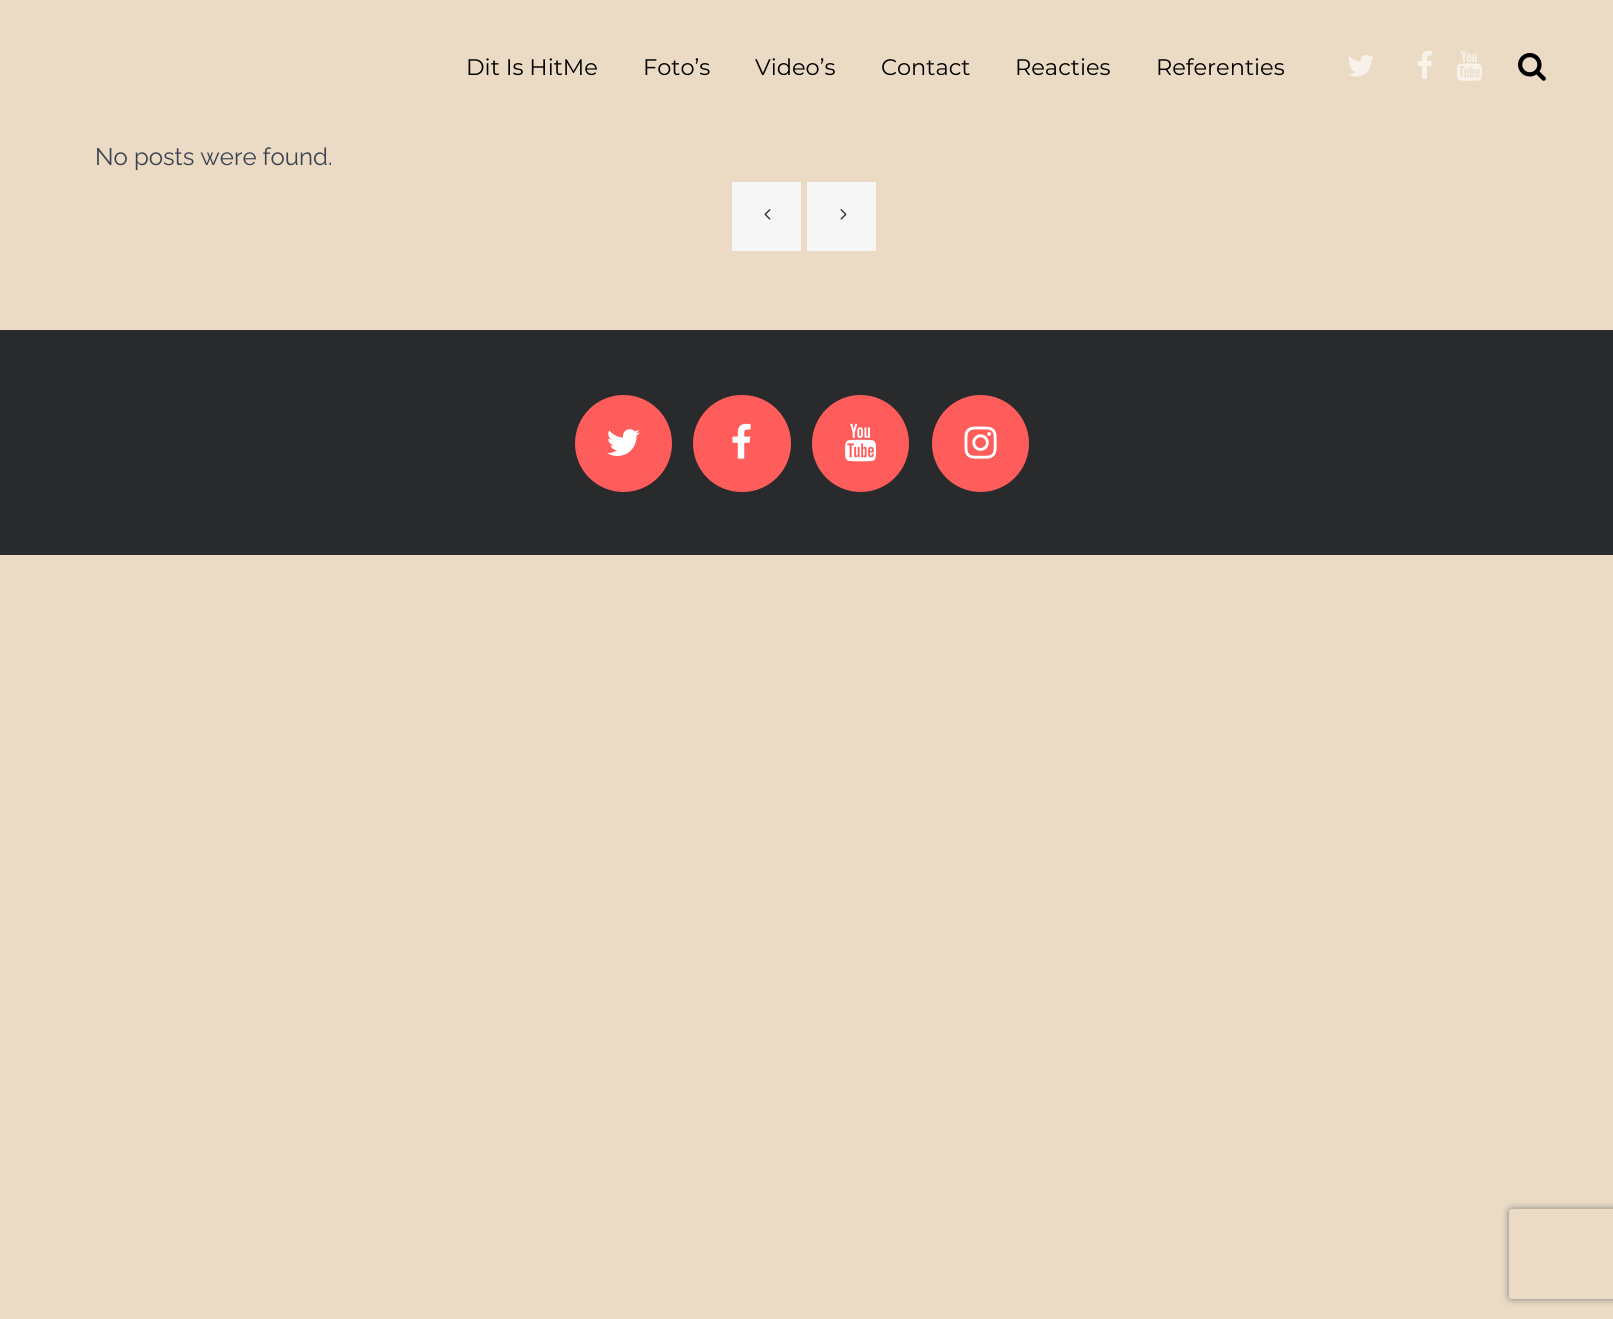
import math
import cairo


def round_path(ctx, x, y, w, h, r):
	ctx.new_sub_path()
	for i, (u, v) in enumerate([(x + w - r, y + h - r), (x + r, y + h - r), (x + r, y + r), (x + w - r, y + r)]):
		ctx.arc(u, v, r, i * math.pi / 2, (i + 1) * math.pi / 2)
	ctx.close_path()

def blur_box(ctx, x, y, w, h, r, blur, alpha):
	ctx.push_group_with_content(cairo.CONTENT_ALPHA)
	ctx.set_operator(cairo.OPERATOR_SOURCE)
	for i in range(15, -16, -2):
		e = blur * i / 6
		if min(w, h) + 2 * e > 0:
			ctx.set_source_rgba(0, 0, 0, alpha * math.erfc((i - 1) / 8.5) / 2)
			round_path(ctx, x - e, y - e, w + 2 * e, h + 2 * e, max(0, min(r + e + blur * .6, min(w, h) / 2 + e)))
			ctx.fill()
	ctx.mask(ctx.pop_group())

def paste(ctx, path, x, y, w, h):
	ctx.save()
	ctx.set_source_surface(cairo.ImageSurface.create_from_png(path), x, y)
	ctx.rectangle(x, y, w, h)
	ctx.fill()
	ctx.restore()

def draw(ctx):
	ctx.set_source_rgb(0.918, 0.859, 0.769)
	ctx.paint()
	ctx.select_font_face('Montserrat')
	ctx.set_font_size(22.5)
	ctx.set_source_rgb(0, 0, 0)
	for x, y, s in [
		(466, 75, 'Dit Is HitMe'),
		(643, 75, 'Foto’s'),
		(755, 75, 'Video’s'),
		(881, 75, 'Contact'),
		(1015, 75, 'Reacties'),
		(1156, 75, 'Referenties'),
	]:
		ctx.move_to(x, y)
		ctx.show_text(s)
	paste(ctx, 'media/1.png', 1348, 55, 26, 22)
	paste(ctx, 'media/2.png', 1417, 50, 15, 29)
	paste(ctx, 'media/3.png', 1457, 50, 25, 31)
	paste(ctx, 'media/4.png', 1518, 52, 28, 29)
	ctx.select_font_face('Raleway')
	ctx.set_font_size(24)
	ctx.set_source_rgb(0.231, 0.263, 0.314)
	ctx.move_to(95, 165)
	ctx.show_text('No posts were found.')
	ctx.set_source_rgb(0.961, 0.961, 0.961)
	ctx.rectangle(732, 182, 69, 69)
	ctx.fill()
	paste(ctx, 'media/5.png', 764, 209, 7, 11)
	ctx.rectangle(807, 182, 69, 69)
	ctx.fill()
	paste(ctx, 'media/6.png', 840, 209, 7, 11)
	ctx.set_source_rgb(0.161, 0.165, 0.169)
	ctx.rectangle(0, 330, 1613, 225)
	ctx.fill()
	ctx.set_source_rgb(1, 0.361, 0.361)
	ctx.arc(623.5, 443.5, 48.5, 0, 2 * math.pi)
	ctx.fill()
	paste(ctx, 'media/7.png', 607, 429, 33, 27)
	round_path(ctx, 693, 395, 98, 97, 48.5)
	ctx.fill()
	paste(ctx, 'media/8.png', 732, 423, 19, 36)
	ctx.arc(860.5, 443.5, 48.5, 0, 2 * math.pi)
	ctx.fill()
	paste(ctx, 'media/9.png', 845, 423, 32, 39)
	ctx.arc(980.5, 443.5, 48.5, 0, 2 * math.pi)
	ctx.fill()
	paste(ctx, 'media/10.png', 964, 426, 33, 33)
	ctx.save()
	ctx.set_fill_rule(cairo.FILL_RULE_EVEN_ODD)
	ctx.new_path()
	ctx.move_to(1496, 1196)
	ctx.line_to(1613, 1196)
	ctx.line_to(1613, 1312)
	ctx.line_to(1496, 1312)
	ctx.close_path()
	ctx.move_to(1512, 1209)
	ctx.line_to(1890, 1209)
	ctx.curve_to(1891.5, 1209, 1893, 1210.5, 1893, 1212)
	ctx.line_to(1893, 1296)
	ctx.curve_to(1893, 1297.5, 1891.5, 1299, 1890, 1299)
	ctx.line_to(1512, 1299)
	ctx.curve_to(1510.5, 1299, 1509, 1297.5, 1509, 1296)
	ctx.line_to(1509, 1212)
	ctx.curve_to(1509, 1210.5, 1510.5, 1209, 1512, 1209)
	ctx.close_path()
	ctx.clip()
	ctx.set_source_rgb(0.502, 0.502, 0.502)
	blur_box(ctx, 1509, 1209, 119, 90, 3, 4, 1)
	ctx.restore()


surface = cairo.ImageSurface(cairo.FORMAT_RGB24, 1613, 1319)
ctx = cairo.Context(surface)
options = cairo.FontOptions()
options.set_hint_metrics(cairo.HINT_METRICS_OFF)
options.set_hint_style(cairo.HINT_STYLE_NONE)
ctx.set_font_options(options)
ctx.set_miter_limit(4)
draw(ctx)
surface.write_to_png('image.png')
